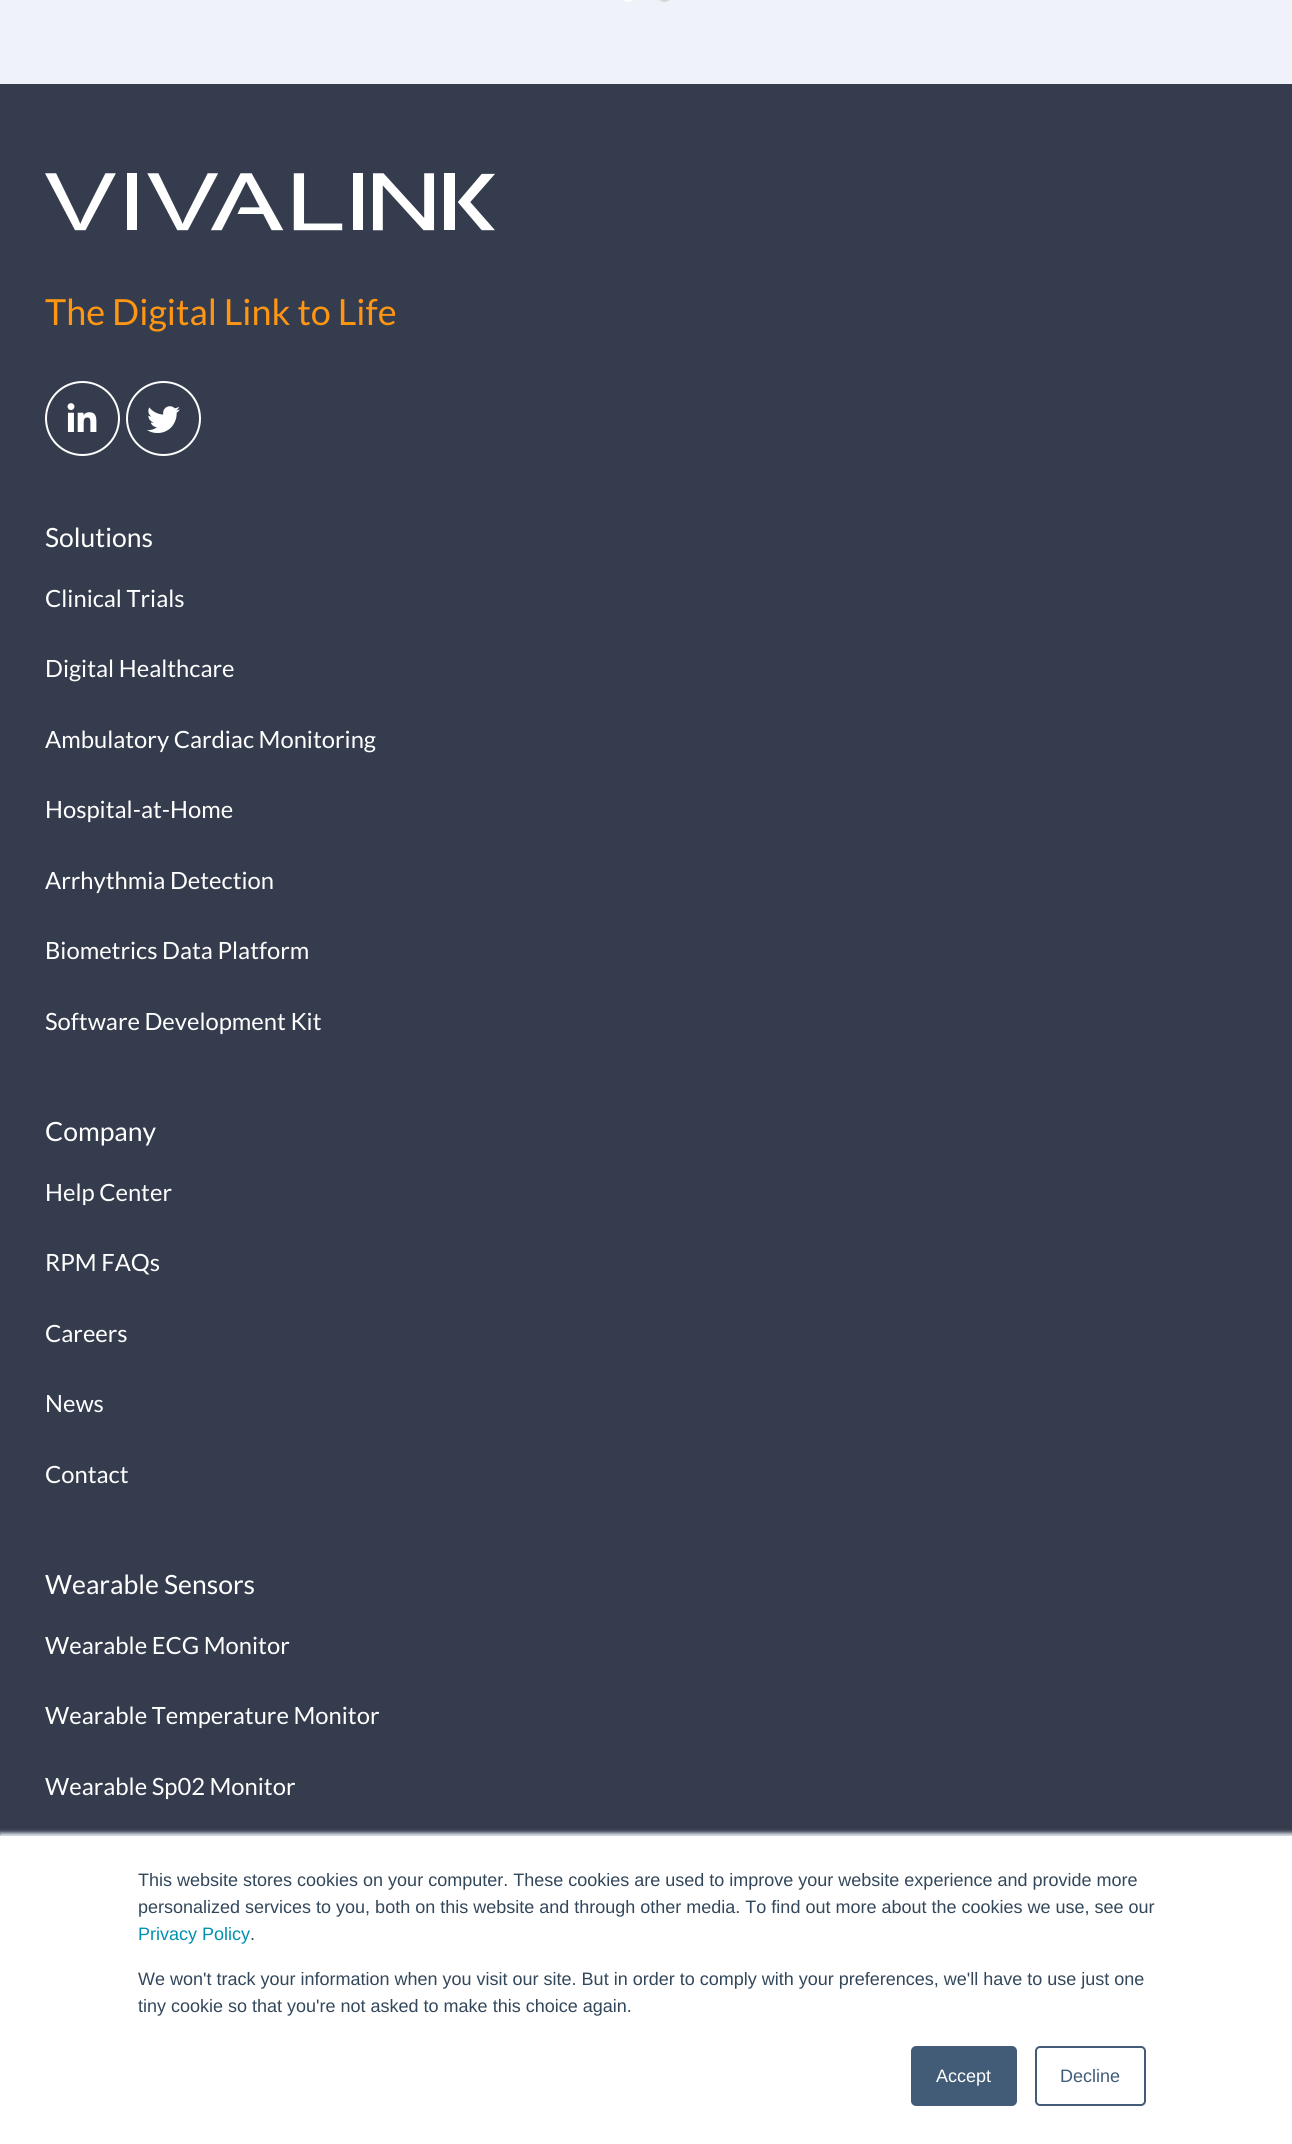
import math
import cairo


def round_path(ctx, x, y, w, h, r):
	ctx.new_sub_path()
	for i, (u, v) in enumerate([(x + w - r, y + h - r), (x + r, y + h - r), (x + r, y + r), (x + w - r, y + r)]):
		ctx.arc(u, v, r, i * math.pi / 2, (i + 1) * math.pi / 2)
	ctx.close_path()

def blur_box(ctx, x, y, w, h, r, blur, alpha):
	ctx.push_group_with_content(cairo.CONTENT_ALPHA)
	ctx.set_operator(cairo.OPERATOR_SOURCE)
	for i in range(15, -16, -2):
		e = blur * i / 6
		if min(w, h) + 2 * e > 0:
			ctx.set_source_rgba(0, 0, 0, alpha * math.erfc((i - 1) / 8.5) / 2)
			round_path(ctx, x - e, y - e, w + 2 * e, h + 2 * e, max(0, min(r + e + blur * .6, min(w, h) / 2 + e)))
			ctx.fill()
	ctx.mask(ctx.pop_group())

def paste(ctx, path, x, y, w, h):
	ctx.save()
	ctx.set_source_surface(cairo.ImageSurface.create_from_png(path), x, y)
	ctx.rectangle(x, y, w, h)
	ctx.fill()
	ctx.restore()

def draw(ctx):
	ctx.set_source_rgb(0.937, 0.949, 0.973)
	ctx.paint()
	ctx.set_source_rgb(1, 1, 1)
	round_path(ctx, 621, -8, 15, 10, 7.5)
	ctx.fill()
	ctx.set_source_rgb(0.839, 0.839, 0.839)
	round_path(ctx, 657, -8, 15, 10, 7.5)
	ctx.fill()
	ctx.set_source_rgb(0.204, 0.235, 0.302)
	ctx.rectangle(0, 84, 1292, 1751)
	ctx.fill()
	paste(ctx, 'media/1.png', 45, 173, 450, 58)
	ctx.select_font_face('Lato')
	ctx.set_font_size(36)
	ctx.set_source_rgb(1, 0.588, 0.075)
	ctx.move_to(45, 325)
	ctx.show_text('The Digital Link to Life')
	ctx.new_path()
	ctx.arc(82.5, 418.5, 36.5, 0, 2 * math.pi)
	ctx.set_source_rgb(1, 1, 1)
	ctx.stroke()
	paste(ctx, 'media/2.png', 67, 403, 30, 29)
	ctx.arc(163.5, 418.5, 36.5, 0, 2 * math.pi)
	ctx.stroke()
	paste(ctx, 'media/3.png', 147, 406, 33, 27)
	ctx.set_font_size(26.5)
	ctx.move_to(45, 547)
	ctx.show_text('Solutions')
	ctx.set_font_size(23.75)
	for x, y, s in [
		(45, 607, 'Clinical Trials'),
		(45, 677, 'Digital Healthcare'),
		(45, 748, 'Ambulatory Cardiac Monitoring'),
		(45, 818, 'Hospital-at-Home'),
		(45, 889, 'Arrhythmia Detection'),
		(45, 959, 'Biometrics Data Platform'),
		(45, 1030, 'Software Development Kit'),
	]:
		ctx.move_to(x, y)
		ctx.show_text(s)
	ctx.set_font_size(26.5)
	ctx.move_to(45, 1141)
	ctx.show_text('Company')
	ctx.set_font_size(23.75)
	for x, y, s in [
		(45, 1201, 'Help Center'),
		(45, 1271, 'RPM FAQs'),
		(45, 1342, 'Careers'),
		(45, 1412, 'News'),
		(45, 1483, 'Contact'),
	]:
		ctx.move_to(x, y)
		ctx.show_text(s)
	ctx.set_font_size(26.5)
	ctx.move_to(45, 1594)
	ctx.show_text('Wearable Sensors')
	ctx.set_font_size(23.75)
	for x, y, s in [
		(45, 1654, 'Wearable ECG Monitor'),
		(45, 1724, 'Wearable Temperature Monitor'),
		(45, 1795, 'Wearable Sp02 Monitor'),
	]:
		ctx.move_to(x, y)
		ctx.show_text(s)
	ctx.set_source_rgb(0.918, 0.941, 0.965)
	blur_box(ctx, 0, 1833, 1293, 311, 0, 2, 1)
	ctx.set_source_rgb(0.796, 0.839, 0.886)
	ctx.rectangle(0, 1835, 1292, 1)
	ctx.fill()
	ctx.set_source_rgb(1, 1, 1)
	ctx.rectangle(0, 1836, 1292, 308)
	ctx.fill()
	ctx.select_font_face('Liberation Sans')
	ctx.set_font_size(18)
	ctx.set_source_rgb(0.2, 0.278, 0.357)
	ctx.move_to(138, 1886)
	ctx.show_text('This website stores cookies on your computer. These cookies are used to improve your website experience and provide more')
	ctx.move_to(138, 1913)
	ctx.show_text('personalized services to you, both on this website and through other media. To find out more about the cookies we use, see our')
	ctx.set_source_rgb(0, 0.569, 0.682)
	ctx.move_to(138, 1940)
	ctx.show_text('Privacy Policy')
	ctx.set_source_rgb(0.2, 0.278, 0.357)
	for x, y, s in [
		(250, 1940, '.'),
		(138, 1985, 'We won\'t track your information when you visit our site. But in order to comply with your preferences, we\'ll have to use just one'),
		(138, 2012, 'tiny cookie so that you\'re not asked to make this choice again.'),
	]:
		ctx.move_to(x, y)
		ctx.show_text(s)
	ctx.set_source_rgb(0.259, 0.357, 0.463)
	round_path(ctx, 912, 2047, 104, 58, 4)
	ctx.fill_preserve()
	ctx.stroke()
	ctx.set_source_rgb(1, 1, 1)
	ctx.move_to(936, 2082)
	ctx.show_text('Accept')
	round_path(ctx, 1036, 2047, 109, 58, 4)
	ctx.set_source_rgb(0.259, 0.357, 0.463)
	ctx.stroke()
	ctx.move_to(1060, 2082)
	ctx.show_text('Decline')


surface = cairo.ImageSurface(cairo.FORMAT_RGB24, 1292, 2144)
ctx = cairo.Context(surface)
options = cairo.FontOptions()
options.set_hint_metrics(cairo.HINT_METRICS_OFF)
options.set_hint_style(cairo.HINT_STYLE_NONE)
ctx.set_font_options(options)
ctx.set_miter_limit(4)
draw(ctx)
surface.write_to_png('image.png')
